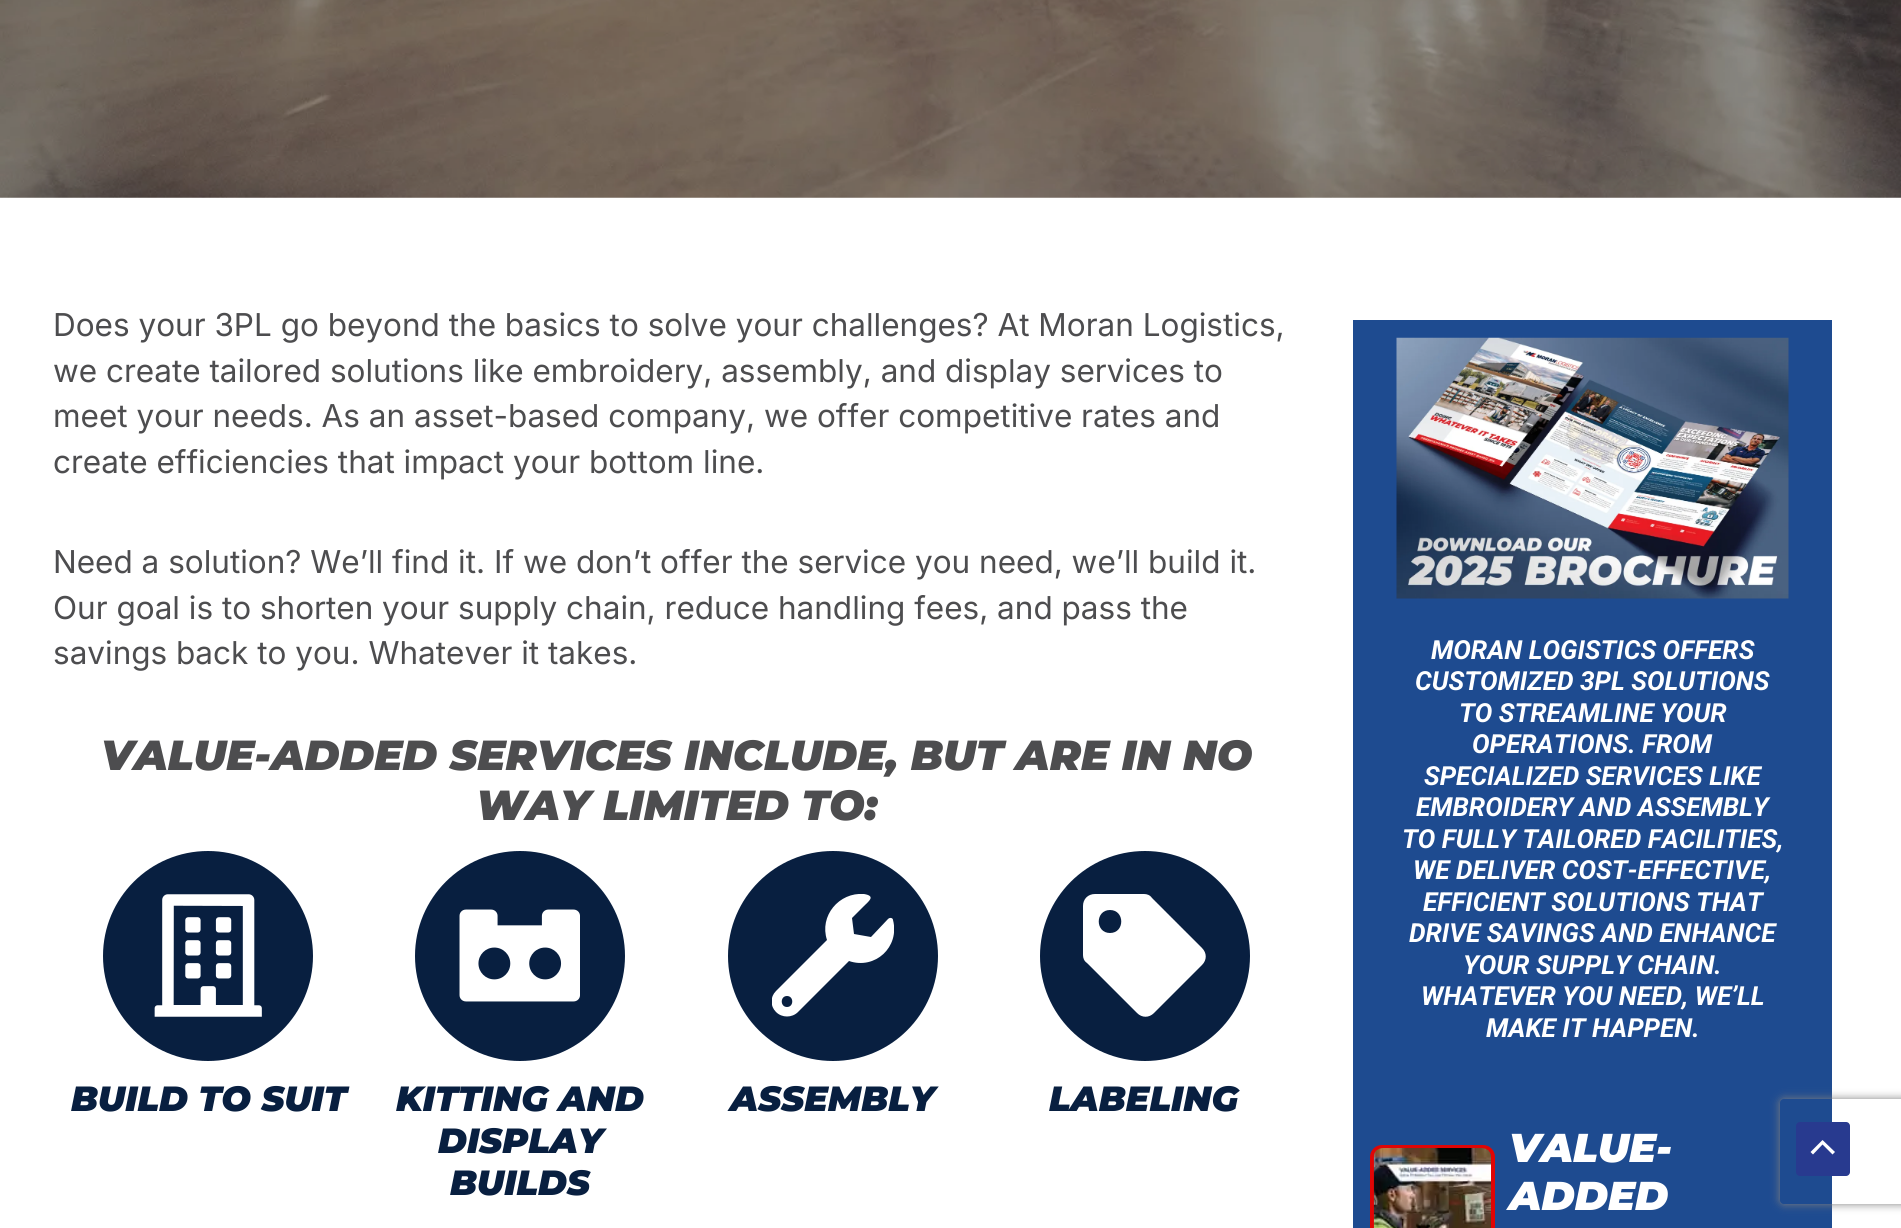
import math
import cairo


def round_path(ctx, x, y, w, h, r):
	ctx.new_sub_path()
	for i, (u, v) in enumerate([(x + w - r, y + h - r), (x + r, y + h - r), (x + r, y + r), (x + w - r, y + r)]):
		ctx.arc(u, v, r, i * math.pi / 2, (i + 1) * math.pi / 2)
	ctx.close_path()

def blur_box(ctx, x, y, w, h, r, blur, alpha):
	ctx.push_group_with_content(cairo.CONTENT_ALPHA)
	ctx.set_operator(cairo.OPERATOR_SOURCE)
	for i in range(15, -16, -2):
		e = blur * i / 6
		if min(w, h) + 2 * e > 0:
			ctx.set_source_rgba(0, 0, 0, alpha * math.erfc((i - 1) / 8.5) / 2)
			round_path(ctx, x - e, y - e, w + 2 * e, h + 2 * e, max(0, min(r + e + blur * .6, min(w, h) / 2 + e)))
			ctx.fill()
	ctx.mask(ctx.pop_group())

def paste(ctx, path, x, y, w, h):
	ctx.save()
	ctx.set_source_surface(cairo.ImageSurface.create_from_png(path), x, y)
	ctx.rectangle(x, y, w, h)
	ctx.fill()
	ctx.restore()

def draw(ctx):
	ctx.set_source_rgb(1, 1, 1)
	ctx.paint()
	paste(ctx, 'media/1.png', 0, 0, 1901, 198)
	ctx.select_font_face('Inter')
	ctx.set_font_size(31.5)
	ctx.set_source_rgb(0.302, 0.302, 0.31)
	for x, y, s in [
		(53, 336, 'Does your 3PL go beyond the basics to solve your challenges? At Moran Logistics,'),
		(53, 382, 'we create tailored solutions like embroidery, assembly, and display services to'),
		(53, 427, 'meet your needs. As an asset-based company, we offer competitive rates and'),
		(53, 473, 'create efficiencies that impact your bottom line.'),
		(53, 573, 'Need a solution? We’ll find it. If we don’t offer the service you need, we’ll build it.'),
		(53, 619, 'Our goal is to shorten your supply chain, reduce handling fees, and pass the'),
		(53, 664, 'savings back to you. Whatever it takes.'),
	]:
		ctx.move_to(x, y)
		ctx.show_text(s)
	ctx.select_font_face('Montserrat Black', cairo.FONT_SLANT_ITALIC)
	ctx.set_font_size(42)
	ctx.move_to(101, 770)
	ctx.show_text('VALUE-ADDED SERVICES INCLUDE, BUT ARE IN NO')
	ctx.move_to(476, 820)
	ctx.show_text('WAY LIMITED TO:')
	ctx.set_source_rgb(0.035, 0.122, 0.251)
	ctx.new_path()
	ctx.arc(208, 956, 105, 0, 2 * math.pi)
	ctx.fill()
	paste(ctx, 'media/2.png', 154, 894, 108, 123)
	ctx.set_font_size(35)
	ctx.move_to(71, 1111)
	ctx.show_text('BUILD TO SUIT')
	ctx.new_path()
	ctx.arc(520, 956, 105, 0, 2 * math.pi)
	ctx.fill()
	paste(ctx, 'media/3.png', 459, 909, 121, 93)
	for x, y, s in [
		(396, 1111, 'KITTING AND'),
		(438, 1153, 'DISPLAY'),
		(450, 1195, 'BUILDS'),
	]:
		ctx.move_to(x, y)
		ctx.show_text(s)
	ctx.new_path()
	ctx.arc(833, 956, 105, 0, 2 * math.pi)
	ctx.fill()
	ctx.save()
	ctx.rectangle(772, 894, 122, 123)
	ctx.clip()
	ctx.set_source_rgb(1, 1, 1)
	ctx.new_path()
	ctx.move_to(893, 920)
	ctx.curve_to(893, 918, 890, 917, 888, 919)
	ctx.line_to(871, 937)
	ctx.line_to(854, 934)
	ctx.line_to(852, 918)
	ctx.line_to(864, 906)
	ctx.curve_to(869, 901, 876, 896, 864, 894)
	ctx.curve_to(839, 892, 819, 916, 827, 940)
	ctx.line_to(776, 991)
	ctx.curve_to(770, 997, 770, 1006, 776, 1012)
	ctx.curve_to(782, 1018, 792, 1018, 798, 1012)
	ctx.line_to(849, 961)
	ctx.curve_to(875, 970, 900, 947, 893, 920)
	ctx.close_path()
	ctx.move_to(787, 1007)
	ctx.curve_to(780, 1007, 780, 996, 787, 996)
	ctx.curve_to(794, 996, 794, 1007, 787, 1007)
	ctx.close_path()
	ctx.fill()
	ctx.restore()
	ctx.move_to(730, 1111)
	ctx.show_text('ASSEMBLY')
	ctx.new_path()
	ctx.arc(1145, 956, 105, 0, 2 * math.pi)
	ctx.fill()
	ctx.set_source_rgb(1, 1, 1)
	ctx.new_path()
	ctx.move_to(1083, 955)
	ctx.line_to(1083, 906)
	ctx.curve_to(1083, 899, 1088, 894, 1095, 894)
	ctx.line_to(1144, 894)
	ctx.curve_to(1147, 894, 1150, 895, 1152, 898)
	ctx.line_to(1202, 948)
	ctx.curve_to(1207, 953, 1207, 960, 1202, 965)
	ctx.line_to(1154, 1013)
	ctx.curve_to(1149, 1018, 1142, 1018, 1137, 1013)
	ctx.line_to(1087, 963)
	ctx.curve_to(1084, 961, 1083, 958, 1083, 955)
	ctx.close_path()
	ctx.move_to(1110, 910)
	ctx.curve_to(1095, 910, 1095, 933, 1110, 933)
	ctx.curve_to(1125, 933, 1125, 910, 1110, 910)
	ctx.close_path()
	ctx.fill()
	ctx.set_source_rgb(0.035, 0.122, 0.251)
	ctx.move_to(1049, 1111)
	ctx.show_text('LABELING')
	ctx.set_source_rgb(0.118, 0.294, 0.565)
	ctx.rectangle(1353, 320, 479, 908)
	ctx.fill()
	paste(ctx, 'media/4.png', 1396, 337, 393, 262)
	ctx.select_font_face('Roboto', cairo.FONT_SLANT_ITALIC, cairo.FONT_WEIGHT_BOLD)
	ctx.set_font_size(26.25)
	ctx.set_source_rgb(1, 1, 1)
	for x, y, s in [
		(1431, 659, 'MORAN LOGISTICS OFFERS'),
		(1415, 690, 'CUSTOMIZED 3PL SOLUTIONS'),
		(1459, 722, 'TO STREAMLINE YOUR'),
		(1472, 753, 'OPERATIONS. FROM'),
		(1424, 785, 'SPECIALIZED SERVICES LIKE'),
		(1416, 816, 'EMBROIDERY AND ASSEMBLY'),
		(1402, 848, 'TO FULLY TAILORED FACILITIES,'),
		(1413, 879, 'WE DELIVER COST-EFFECTIVE,'),
		(1423, 911, 'EFFICIENT SOLUTIONS THAT'),
		(1409, 942, 'DRIVE SAVINGS AND ENHANCE'),
		(1463, 974, 'YOUR SUPPLY CHAIN.'),
		(1421, 1005, 'WHATEVER YOU NEED, WE’LL'),
		(1486, 1037, 'MAKE IT HAPPEN.'),
	]:
		ctx.move_to(x, y)
		ctx.show_text(s)
	round_path(ctx, 1372, 1147, 121, 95, 10)
	ctx.set_source_rgb(0.878, 0.02, 0.02)
	ctx.set_line_width(4)
	ctx.stroke()
	paste(ctx, 'media/5.png', 1373, 1148, 118, 80)
	ctx.select_font_face('Montserrat Black', cairo.FONT_SLANT_ITALIC)
	ctx.set_font_size(40.25)
	ctx.set_source_rgb(1, 1, 1)
	ctx.move_to(1509, 1162)
	ctx.show_text('VALUE-')
	ctx.move_to(1509, 1210)
	ctx.show_text('ADDED')
	ctx.save()
	ctx.set_fill_rule(cairo.FILL_RULE_EVEN_ODD)
	ctx.new_path()
	ctx.move_to(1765, 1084)
	ctx.line_to(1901, 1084)
	ctx.line_to(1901, 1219)
	ctx.line_to(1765, 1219)
	ctx.close_path()
	ctx.move_to(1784, 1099)
	ctx.line_to(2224, 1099)
	ctx.curve_to(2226, 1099, 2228, 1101, 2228, 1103)
	ctx.line_to(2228, 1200)
	ctx.curve_to(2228, 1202, 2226, 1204, 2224, 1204)
	ctx.line_to(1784, 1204)
	ctx.curve_to(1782, 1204, 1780, 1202, 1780, 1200)
	ctx.line_to(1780, 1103)
	ctx.curve_to(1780, 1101, 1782, 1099, 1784, 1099)
	ctx.close_path()
	ctx.clip()
	ctx.set_source_rgb(0.502, 0.502, 0.502)
	blur_box(ctx, 1780, 1099, 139, 105, 4, 4.5, 1)
	ctx.restore()
	ctx.set_source_rgb(0.157, 0.227, 0.561)
	round_path(ctx, 1796, 1122, 54, 54, 4)
	ctx.fill()
	ctx.set_source_rgb(1, 1, 1)
	ctx.new_path()
	ctx.move_to(1835, 1152)
	ctx.line_to(1822.5, 1140)
	ctx.line_to(1810.5, 1152)
	ctx.line_to(1813, 1154.5)
	ctx.line_to(1822.5, 1144.5)
	ctx.line_to(1832.5, 1154.5)
	ctx.close_path()
	ctx.fill()


surface = cairo.ImageSurface(cairo.FORMAT_RGB24, 1901, 1228)
ctx = cairo.Context(surface)
options = cairo.FontOptions()
options.set_hint_metrics(cairo.HINT_METRICS_OFF)
options.set_hint_style(cairo.HINT_STYLE_NONE)
ctx.set_font_options(options)
ctx.set_miter_limit(4)
draw(ctx)
surface.write_to_png('image.png')
